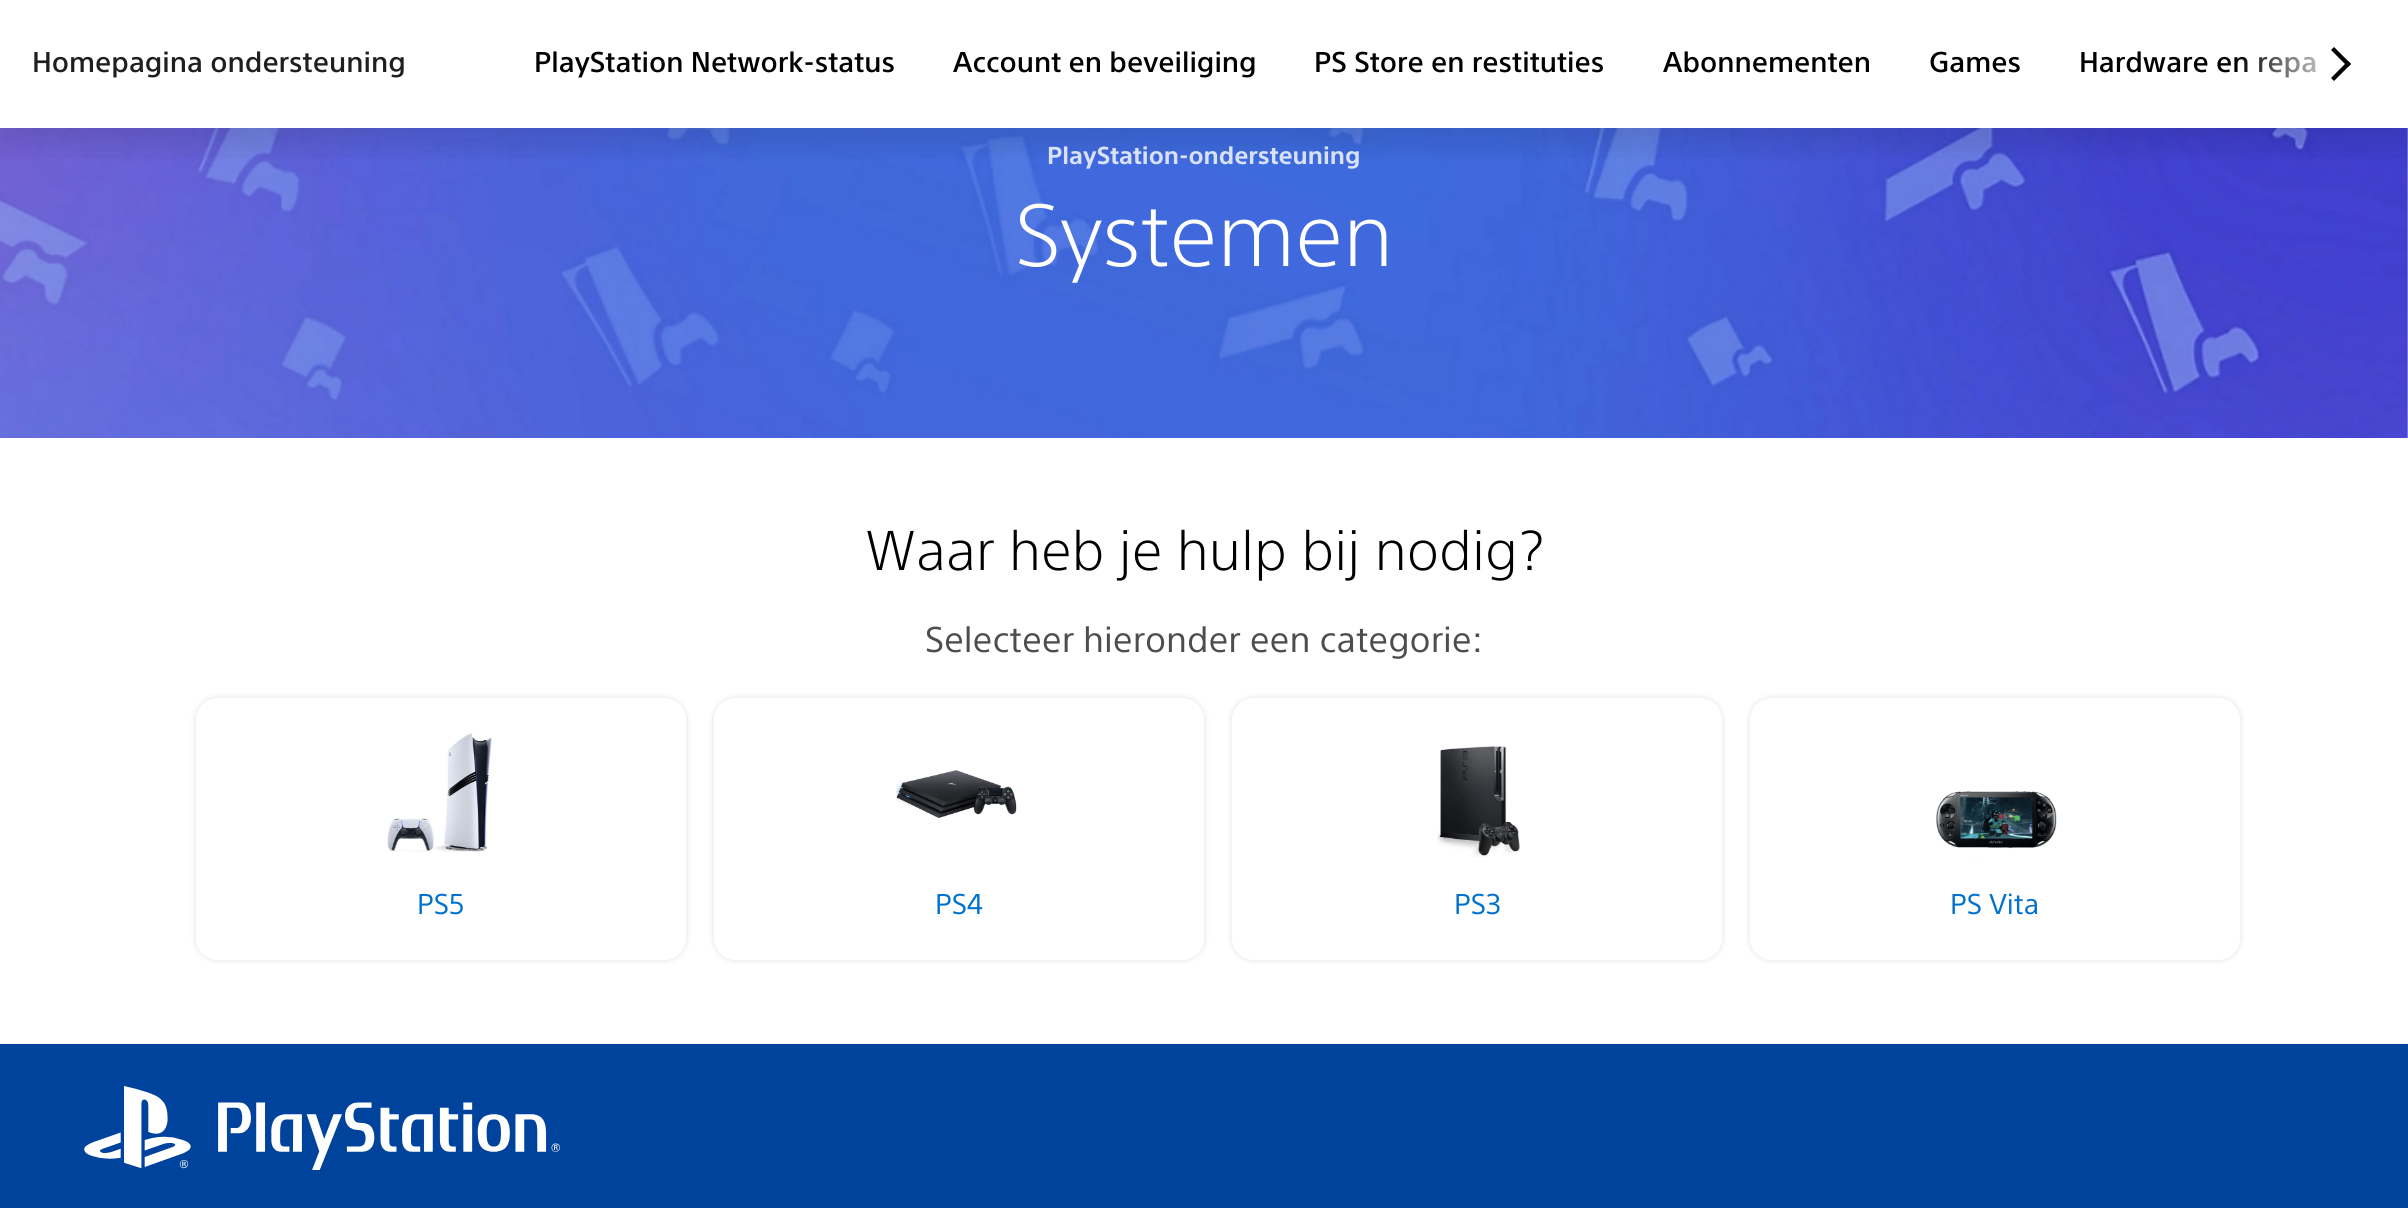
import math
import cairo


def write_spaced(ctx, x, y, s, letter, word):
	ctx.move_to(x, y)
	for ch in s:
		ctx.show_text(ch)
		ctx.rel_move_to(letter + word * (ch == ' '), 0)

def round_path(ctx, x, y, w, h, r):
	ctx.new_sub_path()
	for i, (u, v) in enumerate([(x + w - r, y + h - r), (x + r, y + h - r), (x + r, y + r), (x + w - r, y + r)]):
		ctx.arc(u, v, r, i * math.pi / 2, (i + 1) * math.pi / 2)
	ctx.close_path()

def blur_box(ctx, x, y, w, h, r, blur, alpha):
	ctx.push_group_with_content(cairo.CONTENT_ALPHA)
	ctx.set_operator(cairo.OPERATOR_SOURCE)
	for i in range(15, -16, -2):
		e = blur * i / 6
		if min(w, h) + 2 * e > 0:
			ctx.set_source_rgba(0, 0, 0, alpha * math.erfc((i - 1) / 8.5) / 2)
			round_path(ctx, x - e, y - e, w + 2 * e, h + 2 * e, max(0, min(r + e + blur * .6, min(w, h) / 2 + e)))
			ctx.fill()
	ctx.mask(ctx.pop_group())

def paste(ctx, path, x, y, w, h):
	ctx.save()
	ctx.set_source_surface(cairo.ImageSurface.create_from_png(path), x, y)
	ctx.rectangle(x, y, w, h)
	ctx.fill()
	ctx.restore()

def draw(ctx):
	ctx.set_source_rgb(1, 1, 1)
	ctx.paint()
	paste(ctx, 'media/1.png', 0, 128, 2408, 310)
	ctx.save()
	ctx.rectangle(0, 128, 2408, 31)
	ctx.clip()
	ctx.set_source_rgb(0, 0, 0)
	blur_box(ctx, 0, 16, 2408, 128, 0, 16, 0.12)
	ctx.restore()
	ctx.select_font_face('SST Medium')
	ctx.set_font_size(28)
	ctx.set_source_rgb(0.122, 0.122, 0.122)
	ctx.move_to(32, 72)
	ctx.show_text('Homepagina ondersteuning')
	ctx.set_source_rgb(0, 0, 0)
	ctx.move_to(2079, 72)
	ctx.show_text('Hardware en repa')
	gradient = cairo.LinearGradient(2376, 64, 2236, 64)
	gradient.add_color_stop_rgba(0.2, 1, 1, 1, 1)
	gradient.add_color_stop_rgba(1, 1, 1, 1, 0)
	ctx.set_source(gradient)
	ctx.rectangle(2238, 56, 77, 22)
	ctx.fill()
	ctx.set_source_rgb(0, 0, 0)
	ctx.new_path()
	ctx.move_to(2331, 50)
	ctx.line_to(2334, 47)
	ctx.line_to(2351, 64)
	ctx.line_to(2348, 67)
	ctx.close_path()
	ctx.fill()
	ctx.new_path()
	ctx.move_to(2331, 78)
	ctx.line_to(2348, 61)
	ctx.line_to(2351, 64)
	ctx.line_to(2334, 81)
	ctx.close_path()
	ctx.fill()
	for x, y, s in [
		(534, 72, 'PlayStation Network-status'),
		(953, 72, 'Account en beveiliging'),
		(1314, 72, 'PS Store en restituties'),
		(1663, 72, 'Abonnementen'),
		(1929, 72, 'Games'),
	]:
		ctx.move_to(x, y)
		ctx.show_text(s)
	ctx.select_font_face('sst', cairo.FONT_SLANT_NORMAL, cairo.FONT_WEIGHT_BOLD)
	ctx.set_font_size(24)
	ctx.set_source_rgb(0.847, 0.882, 0.973)
	ctx.move_to(1047, 164)
	ctx.show_text('PlayStation-ondersteuning')
	ctx.select_font_face('sst Light')
	ctx.set_font_size(86)
	ctx.set_source_rgb(1, 1, 1)
	write_spaced(ctx, 1015, 266, 'Systemen', -0.25, 0)
	ctx.set_font_size(54.75)
	ctx.set_source_rgb(0, 0, 0)
	ctx.move_to(865, 570)
	ctx.show_text('Waar heb je hulp bij nodig?')
	ctx.select_font_face('sst')
	ctx.set_font_size(35)
	ctx.set_source_rgb(0.302, 0.302, 0.302)
	ctx.move_to(925, 652)
	ctx.show_text('Selecteer hieronder een categorie:')
	ctx.save()
	ctx.set_fill_rule(cairo.FILL_RULE_EVEN_ODD)
	ctx.new_path()
	ctx.move_to(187, 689)
	ctx.line_to(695, 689)
	ctx.line_to(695, 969)
	ctx.line_to(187, 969)
	ctx.close_path()
	ctx.move_to(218, 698)
	ctx.line_to(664, 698)
	ctx.curve_to(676, 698, 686, 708, 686, 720)
	ctx.line_to(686, 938)
	ctx.curve_to(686, 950, 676, 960, 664, 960)
	ctx.line_to(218, 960)
	ctx.curve_to(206, 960, 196, 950, 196, 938)
	ctx.line_to(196, 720)
	ctx.curve_to(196, 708, 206, 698, 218, 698)
	ctx.close_path()
	ctx.clip()
	ctx.set_source_rgb(0.933, 0.933, 0.933)
	blur_box(ctx, 194, 696, 494, 266, 24, 2, 1)
	ctx.restore()
	paste(ctx, 'media/2.png', 387, 733, 105, 119)
	ctx.set_font_size(28)
	ctx.set_source_rgb(0, 0.447, 0.808)
	ctx.move_to(417, 914)
	ctx.show_text('PS5')
	ctx.save()
	ctx.set_fill_rule(cairo.FILL_RULE_EVEN_ODD)
	ctx.new_path()
	ctx.move_to(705, 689)
	ctx.line_to(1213, 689)
	ctx.line_to(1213, 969)
	ctx.line_to(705, 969)
	ctx.close_path()
	ctx.move_to(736, 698)
	ctx.line_to(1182, 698)
	ctx.curve_to(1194, 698, 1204, 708, 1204, 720)
	ctx.line_to(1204, 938)
	ctx.curve_to(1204, 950, 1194, 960, 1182, 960)
	ctx.line_to(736, 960)
	ctx.curve_to(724, 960, 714, 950, 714, 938)
	ctx.line_to(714, 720)
	ctx.curve_to(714, 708, 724, 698, 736, 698)
	ctx.close_path()
	ctx.clip()
	ctx.set_source_rgb(0.933, 0.933, 0.933)
	blur_box(ctx, 712, 696, 494, 266, 24, 2, 1)
	ctx.restore()
	paste(ctx, 'media/3.png', 896, 770, 121, 49)
	ctx.move_to(935, 914)
	ctx.show_text('PS4')
	ctx.save()
	ctx.set_fill_rule(cairo.FILL_RULE_EVEN_ODD)
	ctx.new_path()
	ctx.move_to(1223, 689)
	ctx.line_to(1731, 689)
	ctx.line_to(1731, 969)
	ctx.line_to(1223, 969)
	ctx.close_path()
	ctx.move_to(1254, 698)
	ctx.line_to(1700, 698)
	ctx.curve_to(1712, 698, 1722, 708, 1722, 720)
	ctx.line_to(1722, 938)
	ctx.curve_to(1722, 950, 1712, 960, 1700, 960)
	ctx.line_to(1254, 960)
	ctx.curve_to(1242, 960, 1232, 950, 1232, 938)
	ctx.line_to(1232, 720)
	ctx.curve_to(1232, 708, 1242, 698, 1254, 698)
	ctx.close_path()
	ctx.clip()
	ctx.set_source_rgb(0.933, 0.933, 0.933)
	blur_box(ctx, 1230, 696, 494, 266, 24, 2, 1)
	ctx.restore()
	paste(ctx, 'media/4.png', 1436, 746, 84, 111)
	ctx.move_to(1454, 914)
	ctx.show_text('PS3')
	ctx.save()
	ctx.set_fill_rule(cairo.FILL_RULE_EVEN_ODD)
	ctx.new_path()
	ctx.move_to(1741, 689)
	ctx.line_to(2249, 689)
	ctx.line_to(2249, 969)
	ctx.line_to(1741, 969)
	ctx.close_path()
	ctx.move_to(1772, 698)
	ctx.line_to(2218, 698)
	ctx.curve_to(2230, 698, 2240, 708, 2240, 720)
	ctx.line_to(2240, 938)
	ctx.curve_to(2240, 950, 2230, 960, 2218, 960)
	ctx.line_to(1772, 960)
	ctx.curve_to(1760, 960, 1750, 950, 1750, 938)
	ctx.line_to(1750, 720)
	ctx.curve_to(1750, 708, 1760, 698, 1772, 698)
	ctx.close_path()
	ctx.clip()
	ctx.set_source_rgb(0.933, 0.933, 0.933)
	blur_box(ctx, 1748, 696, 494, 266, 24, 2, 1)
	ctx.restore()
	paste(ctx, 'media/5.png', 1936, 791, 121, 67)
	ctx.move_to(1950, 914)
	ctx.show_text('PS Vita')
	ctx.set_source_rgb(0, 0.263, 0.612)
	ctx.rectangle(0, 1044, 2408, 164)
	ctx.fill()
	paste(ctx, 'media/6.png', 84, 1086, 476, 84)


surface = cairo.ImageSurface(cairo.FORMAT_RGB24, 2408, 1208)
ctx = cairo.Context(surface)
options = cairo.FontOptions()
options.set_hint_metrics(cairo.HINT_METRICS_OFF)
options.set_hint_style(cairo.HINT_STYLE_NONE)
ctx.set_font_options(options)
ctx.set_miter_limit(4)
draw(ctx)
surface.write_to_png('image.png')
